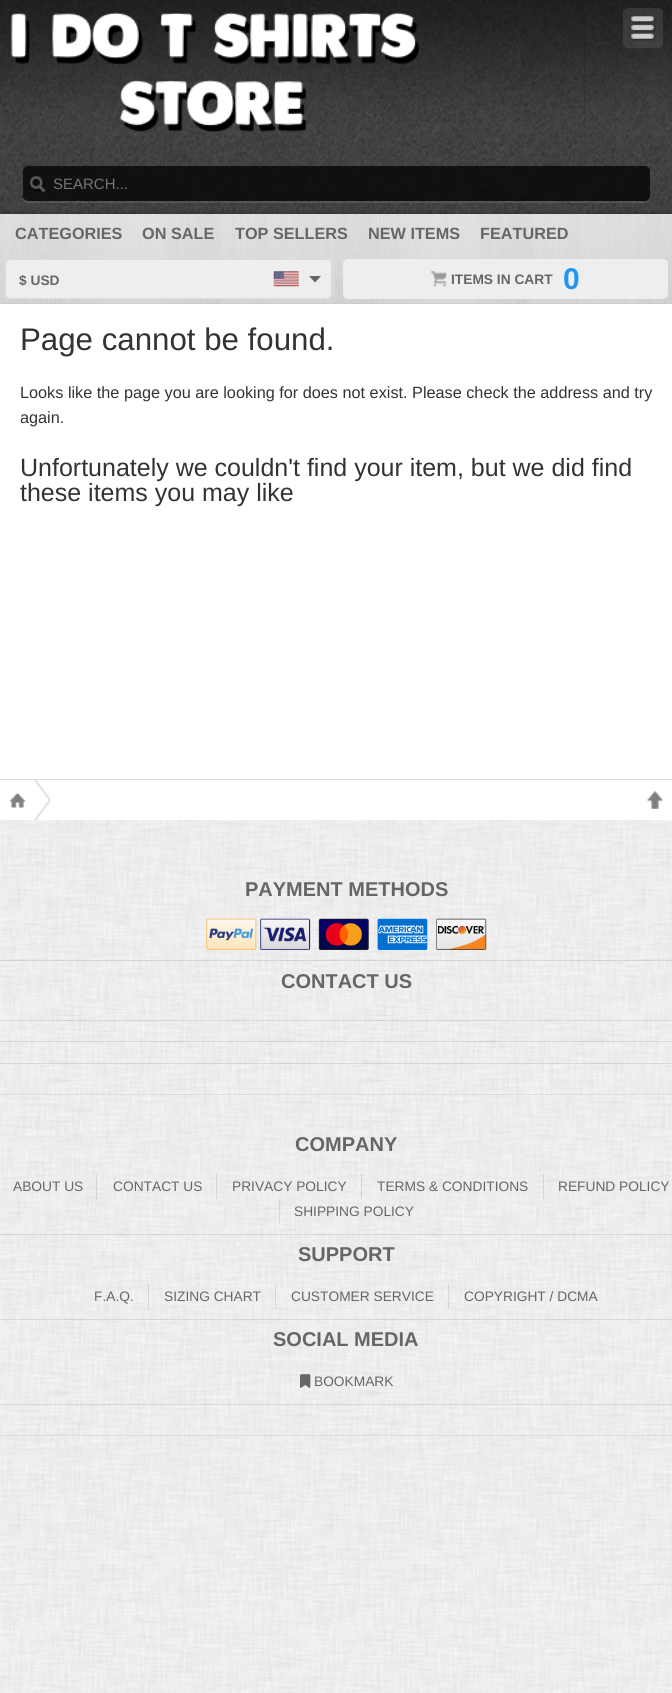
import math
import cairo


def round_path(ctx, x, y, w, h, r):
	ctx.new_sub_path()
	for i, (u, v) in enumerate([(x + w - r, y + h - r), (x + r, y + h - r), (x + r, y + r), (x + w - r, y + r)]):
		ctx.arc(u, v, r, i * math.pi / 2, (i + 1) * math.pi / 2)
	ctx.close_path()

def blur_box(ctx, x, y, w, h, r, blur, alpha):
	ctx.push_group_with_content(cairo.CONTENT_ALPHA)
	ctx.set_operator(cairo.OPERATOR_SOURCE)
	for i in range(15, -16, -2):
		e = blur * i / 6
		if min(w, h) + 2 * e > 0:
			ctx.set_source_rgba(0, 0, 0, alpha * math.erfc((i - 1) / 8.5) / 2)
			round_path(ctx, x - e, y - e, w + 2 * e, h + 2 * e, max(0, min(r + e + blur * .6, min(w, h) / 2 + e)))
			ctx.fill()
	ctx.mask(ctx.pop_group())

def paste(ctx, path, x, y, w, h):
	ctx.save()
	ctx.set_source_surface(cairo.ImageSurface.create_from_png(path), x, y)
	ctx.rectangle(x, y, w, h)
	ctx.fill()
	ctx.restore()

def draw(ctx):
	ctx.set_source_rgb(1, 1, 1)
	ctx.paint()
	paste(ctx, 'media/1.png', 0, 303, 672, 1390)
	paste(ctx, 'media/2.png', 0, 0, 672, 214)
	ctx.set_source_rgba(0, 0, 0, 0.1)
	ctx.new_path()
	ctx.move_to(11, 138)
	ctx.line_to(585, 138)
	ctx.line_to(585, 13)
	ctx.line_to(584, 13)
	ctx.line_to(584, 138)
	ctx.close_path()
	ctx.fill()
	paste(ctx, 'media/3.png', 11, 12, 409, 120)
	ctx.set_source_rgba(1, 1, 1, 0.1)
	round_path(ctx, 623, 8, 40, 40, 5)
	ctx.fill()
	paste(ctx, 'media/4.png', 631, 16, 25, 25)
	ctx.new_path()
	ctx.move_to(23, 198)
	ctx.curve_to(23, 201, 25, 203, 28, 203)
	ctx.line_to(645, 203)
	ctx.curve_to(648, 203, 650, 201, 650, 198)
	ctx.line_to(650, 196)
	ctx.curve_to(650, 199, 648, 201, 645, 201)
	ctx.line_to(28, 201)
	ctx.curve_to(26, 201, 24, 200, 23, 198)
	ctx.close_path()
	ctx.fill()
	ctx.set_source_rgba(0, 0, 0, 0.75)
	round_path(ctx, 23, 166, 627, 35, 5)
	ctx.fill()
	paste(ctx, 'media/5.png', 30, 176, 17, 18)
	ctx.select_font_face('Liberation Sans')
	ctx.set_font_size(15)
	ctx.set_source_rgb(0.459, 0.459, 0.459)
	ctx.move_to(53, 189)
	ctx.show_text('SEARCH...')
	ctx.set_source_rgb(0, 0, 0)
	blur_box(ctx, 0, 214, 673, 90, 0, 2.5, 0.35)
	paste(ctx, 'media/6.png', 0, 214, 672, 90)
	ctx.select_font_face('Liberation Sans', cairo.FONT_SLANT_NORMAL, cairo.FONT_WEIGHT_BOLD)
	ctx.set_font_size(16.25)
	ctx.set_source_rgb(0.4, 0.4, 0.4)
	for x, y, s in [
		(15, 239, 'CATEGORIES'),
		(142, 239, 'ON SALE'),
		(235, 239, 'TOP SELLERS'),
		(368, 239, 'NEW ITEMS'),
		(480, 239, 'FEATURED'),
	]:
		ctx.move_to(x, y)
		ctx.show_text(s)
	ctx.set_source_rgb(0.933, 0.933, 0.933)
	round_path(ctx, 6, 260, 325, 38, 4)
	ctx.fill()
	round_path(ctx, 5.5, 259.5, 327, 39, 4.5)
	ctx.set_source_rgb(0.867, 0.867, 0.867)
	ctx.set_line_width(1)
	ctx.stroke()
	ctx.set_font_size(13.75)
	ctx.set_source_rgb(0.4, 0.4, 0.4)
	ctx.move_to(19, 285)
	ctx.show_text('$ USD')
	paste(ctx, 'media/7.png', 273, 271, 26, 16)
	ctx.new_path()
	ctx.move_to(309, 276)
	ctx.line_to(321, 276)
	ctx.line_to(315, 282.5)
	ctx.close_path()
	ctx.fill()
	ctx.set_source_rgb(0.933, 0.933, 0.933)
	round_path(ctx, 343, 259, 325, 40, 5)
	ctx.fill()
	paste(ctx, 'media/8.png', 431, 271, 16, 16)
	ctx.set_source_rgb(0.4, 0.4, 0.4)
	ctx.move_to(451, 284)
	ctx.show_text('ITEMS IN CART')
	ctx.set_font_size(30)
	ctx.set_source_rgb(0.129, 0.588, 0.953)
	ctx.move_to(563, 289)
	ctx.show_text('0')
	ctx.set_source_rgb(1, 1, 1)
	ctx.rectangle(0, 304, 672, 516)
	ctx.fill()
	ctx.select_font_face('Liberation Sans')
	ctx.set_font_size(31.25)
	ctx.set_source_rgb(0.2, 0.2, 0.2)
	ctx.move_to(20, 350)
	ctx.show_text('Page cannot be found.')
	ctx.set_font_size(16.25)
	ctx.move_to(20, 398)
	ctx.show_text('Looks like the page you are looking for does not exist. Please check the address and try')
	ctx.move_to(20, 423)
	ctx.show_text('again.')
	ctx.set_font_size(25)
	ctx.move_to(20, 476)
	ctx.show_text('Unfortunately we couldn\'t find your item, but we did find')
	ctx.move_to(20, 501)
	ctx.show_text('these items you may like')
	ctx.set_source_rgb(0.867, 0.867, 0.867)
	ctx.rectangle(0, 779, 672, 1)
	ctx.fill()
	paste(ctx, 'media/9.png', 35, 780, 15, 40)
	paste(ctx, 'media/10.png', 10, 780, 15, 28)
	paste(ctx, 'media/11.png', 647, 791, 16, 18)
	ctx.set_source_rgba(0, 0, 0, 0.1)
	ctx.rectangle(0, 960, 672, 1)
	ctx.fill()
	ctx.select_font_face('Liberation Sans', cairo.FONT_SLANT_NORMAL, cairo.FONT_WEIGHT_BOLD)
	ctx.set_font_size(20)
	ctx.set_source_rgb(0.4, 0.4, 0.4)
	ctx.move_to(245, 896)
	ctx.show_text('PAYMENT METHODS')
	paste(ctx, 'media/12.png', 206, 918, 51, 32)
	paste(ctx, 'media/13.png', 260, 918, 227, 32)
	ctx.set_source_rgba(0, 0, 0, 0.1)
	ctx.rectangle(0, 1020, 672, 1)
	ctx.fill()
	ctx.set_source_rgb(0.4, 0.4, 0.4)
	ctx.move_to(281, 988)
	ctx.show_text('CONTACT US')
	ctx.set_source_rgba(0, 0, 0, 0.1)
	ctx.rectangle(0, 1041, 672, 1)
	ctx.fill()
	ctx.rectangle(0, 1063, 672, 1)
	ctx.fill()
	ctx.set_source_rgb(0.867, 0.867, 0.867)
	ctx.rectangle(0, 1094, 672, 1)
	ctx.fill()
	ctx.set_source_rgba(0, 0, 0, 0.1)
	ctx.rectangle(0, 1234, 672, 1)
	ctx.fill()
	ctx.set_source_rgb(0.4, 0.4, 0.4)
	ctx.move_to(295, 1151)
	ctx.show_text('COMPANY')
	ctx.select_font_face('Liberation Sans')
	ctx.set_font_size(13.75)
	ctx.move_to(13, 1191)
	ctx.show_text('ABOUT US')
	ctx.set_source_rgba(0, 0, 0, 0.1)
	ctx.rectangle(96, 1174, 1, 25)
	ctx.fill()
	ctx.set_source_rgb(0.4, 0.4, 0.4)
	ctx.move_to(113, 1191)
	ctx.show_text('CONTACT US')
	ctx.set_source_rgba(0, 0, 0, 0.1)
	ctx.rectangle(216, 1174, 1, 25)
	ctx.fill()
	ctx.set_source_rgb(0.4, 0.4, 0.4)
	ctx.move_to(232, 1191)
	ctx.show_text('PRIVACY POLICY')
	ctx.set_source_rgba(0, 0, 0, 0.1)
	ctx.rectangle(361, 1174, 1, 25)
	ctx.fill()
	ctx.set_source_rgb(0.4, 0.4, 0.4)
	ctx.move_to(377, 1191)
	ctx.show_text('TERMS & CONDITIONS')
	ctx.set_source_rgba(0, 0, 0, 0.1)
	ctx.rectangle(543, 1174, 1, 25)
	ctx.fill()
	ctx.set_source_rgb(0.4, 0.4, 0.4)
	ctx.move_to(558, 1191)
	ctx.show_text('REFUND POLICY')
	ctx.set_source_rgba(0, 0, 0, 0.1)
	ctx.rectangle(279, 1199, 1, 25)
	ctx.fill()
	ctx.set_source_rgb(0.4, 0.4, 0.4)
	ctx.move_to(294, 1216)
	ctx.show_text('SHIPPING POLICY')
	ctx.set_source_rgba(0, 0, 0, 0.1)
	ctx.rectangle(0, 1319, 672, 1)
	ctx.fill()
	ctx.select_font_face('Liberation Sans', cairo.FONT_SLANT_NORMAL, cairo.FONT_WEIGHT_BOLD)
	ctx.set_font_size(20)
	ctx.set_source_rgb(0.4, 0.4, 0.4)
	ctx.move_to(298, 1261)
	ctx.show_text('SUPPORT')
	ctx.select_font_face('Liberation Sans')
	ctx.set_font_size(13.75)
	ctx.move_to(94, 1301)
	ctx.show_text('F.A.Q.')
	ctx.set_source_rgba(0, 0, 0, 0.1)
	ctx.rectangle(148, 1284, 1, 25)
	ctx.fill()
	ctx.set_source_rgb(0.4, 0.4, 0.4)
	ctx.move_to(164, 1301)
	ctx.show_text('SIZING CHART')
	ctx.set_source_rgba(0, 0, 0, 0.1)
	ctx.rectangle(275, 1284, 1, 25)
	ctx.fill()
	ctx.set_source_rgb(0.4, 0.4, 0.4)
	ctx.move_to(291, 1301)
	ctx.show_text('CUSTOMER SERVICE')
	ctx.set_source_rgba(0, 0, 0, 0.1)
	ctx.rectangle(448, 1284, 1, 25)
	ctx.fill()
	ctx.set_source_rgb(0.4, 0.4, 0.4)
	ctx.move_to(464, 1301)
	ctx.show_text('COPYRIGHT / DCMA')
	ctx.set_source_rgba(0, 0, 0, 0.1)
	ctx.rectangle(0, 1404, 672, 1)
	ctx.fill()
	ctx.select_font_face('Liberation Sans', cairo.FONT_SLANT_NORMAL, cairo.FONT_WEIGHT_BOLD)
	ctx.set_font_size(20)
	ctx.set_source_rgb(0.4, 0.4, 0.4)
	ctx.move_to(273, 1346)
	ctx.show_text('SOCIAL MEDIA')
	paste(ctx, 'media/14.png', 300, 1374, 11, 14)
	ctx.select_font_face('Liberation Sans')
	ctx.set_font_size(13.75)
	ctx.move_to(314, 1386)
	ctx.show_text('BOOKMARK')
	ctx.set_source_rgb(0.867, 0.867, 0.867)
	ctx.rectangle(0, 1435, 672, 1)
	ctx.fill()


surface = cairo.ImageSurface(cairo.FORMAT_RGB24, 672, 1693)
ctx = cairo.Context(surface)
options = cairo.FontOptions()
options.set_hint_metrics(cairo.HINT_METRICS_OFF)
options.set_hint_style(cairo.HINT_STYLE_NONE)
ctx.set_font_options(options)
ctx.set_miter_limit(4)
draw(ctx)
surface.write_to_png('image.png')
